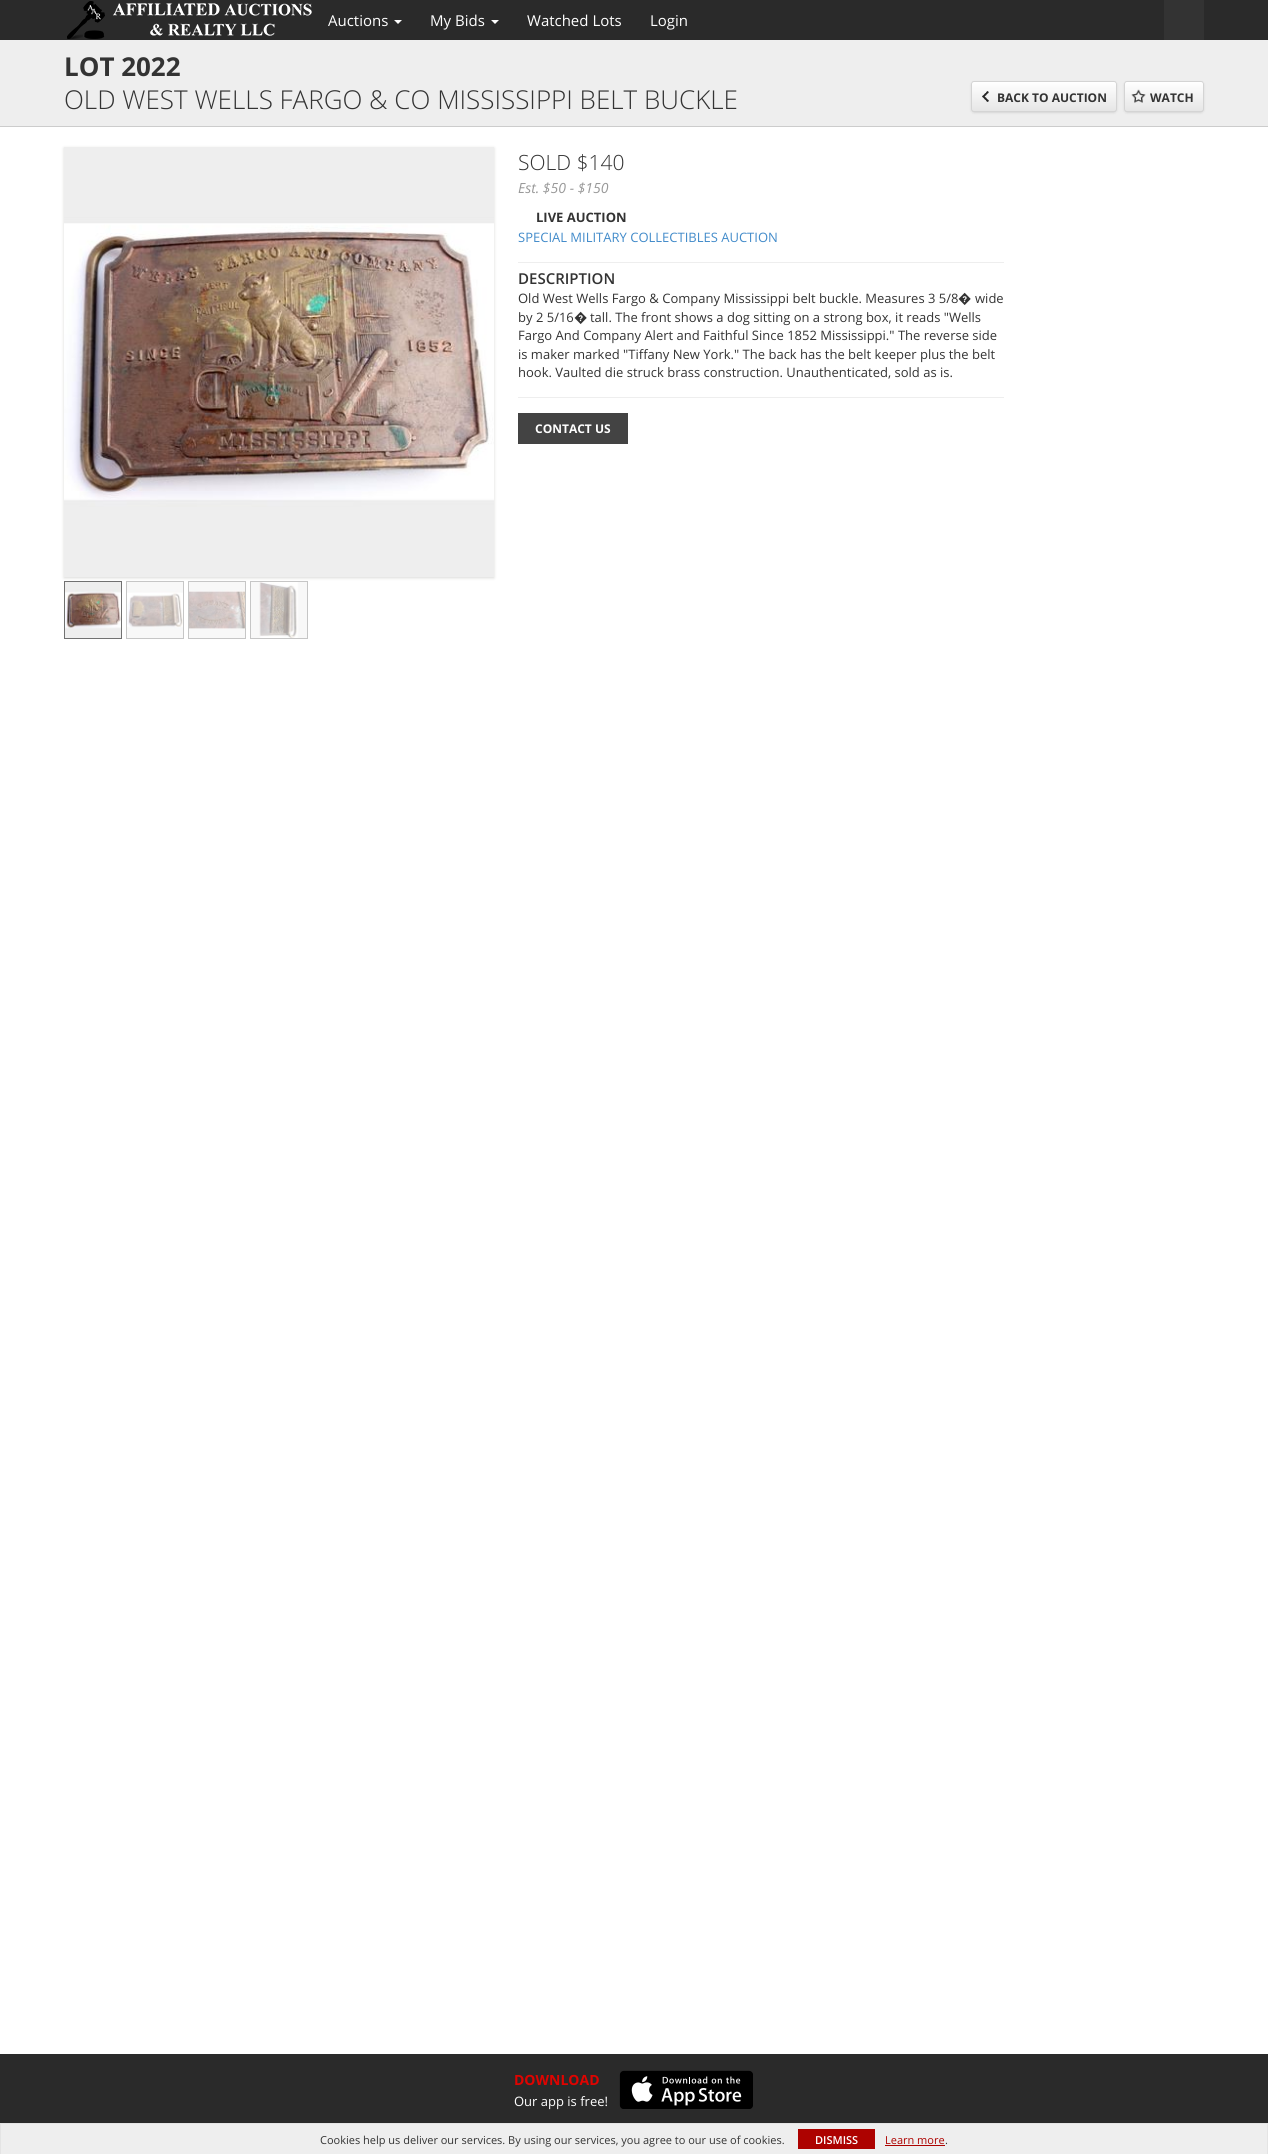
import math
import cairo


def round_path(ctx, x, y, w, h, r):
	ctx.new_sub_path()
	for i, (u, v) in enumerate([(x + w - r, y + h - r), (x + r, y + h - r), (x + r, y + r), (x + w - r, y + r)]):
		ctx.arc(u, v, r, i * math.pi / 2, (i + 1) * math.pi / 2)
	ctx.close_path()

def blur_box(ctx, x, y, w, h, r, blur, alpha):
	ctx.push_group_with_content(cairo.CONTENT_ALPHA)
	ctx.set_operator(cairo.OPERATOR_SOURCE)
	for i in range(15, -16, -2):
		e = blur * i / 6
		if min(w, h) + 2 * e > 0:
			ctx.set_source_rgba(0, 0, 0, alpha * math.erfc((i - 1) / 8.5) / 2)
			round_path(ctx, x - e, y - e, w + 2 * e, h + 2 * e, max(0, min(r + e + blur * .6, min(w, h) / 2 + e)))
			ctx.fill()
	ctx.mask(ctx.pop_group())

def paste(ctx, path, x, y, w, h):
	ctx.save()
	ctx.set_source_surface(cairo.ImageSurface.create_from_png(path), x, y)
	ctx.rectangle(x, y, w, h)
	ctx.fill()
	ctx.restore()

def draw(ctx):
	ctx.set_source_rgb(1, 1, 1)
	ctx.paint()
	ctx.set_source_rgb(0.165, 0.165, 0.165)
	ctx.rectangle(0, 0, 1268, 40)
	ctx.fill()
	paste(ctx, 'media/1.png', 67, 1, 245, 38)
	ctx.select_font_face('Open Sans')
	ctx.set_font_size(15)
	ctx.set_source_rgb(1, 1, 1)
	ctx.move_to(328, 26)
	ctx.show_text('Auctions')
	ctx.new_path()
	ctx.move_to(394, 20)
	ctx.line_to(402, 20)
	ctx.line_to(398, 24)
	ctx.close_path()
	ctx.fill()
	ctx.move_to(430, 26)
	ctx.show_text('My Bids')
	ctx.new_path()
	ctx.move_to(491, 20)
	ctx.line_to(499, 20)
	ctx.line_to(495, 24)
	ctx.close_path()
	ctx.fill()
	ctx.move_to(527, 26)
	ctx.show_text('Watched Lots')
	ctx.move_to(650, 26)
	ctx.show_text('Login')
	ctx.set_source_rgb(0.2, 0.2, 0.2)
	ctx.rectangle(1164, 0, 40, 40)
	ctx.fill()
	ctx.set_source_rgb(0.933, 0.933, 0.933)
	ctx.rectangle(0, 40, 1268, 86)
	ctx.fill()
	ctx.set_source_rgb(0.8, 0.8, 0.8)
	ctx.rectangle(0, 126, 1268, 1)
	ctx.fill()
	ctx.select_font_face('Open Sans', cairo.FONT_SLANT_NORMAL, cairo.FONT_WEIGHT_BOLD)
	ctx.set_font_size(26)
	ctx.set_source_rgb(0.2, 0.2, 0.2)
	ctx.move_to(64, 76)
	ctx.show_text('LOT 2022')
	ctx.select_font_face('Open Sans Light')
	ctx.move_to(64, 109)
	ctx.show_text('OLD WEST WELLS FARGO & CO MISSISSIPPI BELT BUCKLE')
	ctx.set_source_rgb(0, 0, 0)
	blur_box(ctx, 972, 83, 144, 29, 2, 1.5, 0.2)
	ctx.save()
	round_path(ctx, 971, 81, 146, 31, 3)
	ctx.clip()
	gradient = cairo.LinearGradient(1044, 82, 1044, 111)
	gradient.add_color_stop_rgba(0, 1, 1, 1, 1)
	gradient.add_color_stop_rgba(1, 0.902, 0.902, 0.902, 1)
	ctx.set_source(gradient)
	ctx.rectangle(971, 82, 146, 29)
	ctx.fill()
	ctx.restore()
	round_path(ctx, 971.5, 81.5, 145, 30, 2.5)
	ctx.set_source_rgb(0.831, 0.831, 0.831)
	ctx.set_line_width(1)
	ctx.stroke()
	paste(ctx, 'media/2.png', 982, 91, 7, 11)
	ctx.select_font_face('Open Sans', cairo.FONT_SLANT_NORMAL, cairo.FONT_WEIGHT_BOLD)
	ctx.set_font_size(12)
	ctx.set_source_rgb(0.2, 0.2, 0.2)
	ctx.move_to(997, 102)
	ctx.show_text('BACK TO AUCTION')
	ctx.set_source_rgb(0, 0, 0)
	blur_box(ctx, 1125, 83, 78, 29, 2, 1.5, 0.2)
	ctx.save()
	round_path(ctx, 1124, 81, 80, 31, 3)
	ctx.clip()
	gradient = cairo.LinearGradient(1164, 82, 1164, 111)
	gradient.add_color_stop_rgba(0, 1, 1, 1, 1)
	gradient.add_color_stop_rgba(1, 0.902, 0.902, 0.902, 1)
	ctx.set_source(gradient)
	ctx.rectangle(1124, 82, 80, 29)
	ctx.fill()
	ctx.restore()
	ctx.set_source_rgba(1, 1, 1, 0.4)
	ctx.new_path()
	ctx.move_to(1127, 83)
	ctx.line_to(1201, 83)
	ctx.curve_to(1202, 83, 1203, 84, 1203, 85)
	ctx.curve_to(1203, 79, 1192, 82, 1189, 82)
	ctx.line_to(1139, 82)
	ctx.curve_to(1136, 82, 1125, 79, 1125, 85)
	ctx.curve_to(1125, 84, 1126, 83, 1127, 83)
	ctx.close_path()
	ctx.fill()
	round_path(ctx, 1124.5, 81.5, 79, 30, 2.5)
	ctx.set_source_rgb(0.831, 0.831, 0.831)
	ctx.stroke()
	paste(ctx, 'media/3.png', 1131, 89, 15, 14)
	ctx.set_source_rgb(0.2, 0.2, 0.2)
	ctx.move_to(1150, 102)
	ctx.show_text('WATCH')
	ctx.set_source_rgb(0.855, 0.851, 0.843)
	blur_box(ctx, 64, 148, 430, 430, 0, 1.5, 1)
	paste(ctx, 'media/4.png', 64, 147, 430, 430)
	ctx.rectangle(64.5, 581.5, 57, 57)
	ctx.set_source_rgb(0.443, 0.443, 0.443)
	ctx.stroke()
	ctx.rectangle(126.5, 581.5, 57, 57)
	ctx.set_source_rgb(0.776, 0.776, 0.776)
	ctx.stroke()
	ctx.rectangle(188.5, 581.5, 57, 57)
	ctx.stroke()
	ctx.rectangle(250.5, 581.5, 57, 57)
	ctx.stroke()
	paste(ctx, 'media/5.png', 65, 582, 56, 56)
	paste(ctx, 'media/6.png', 127, 582, 56, 56)
	paste(ctx, 'media/7.png', 189, 582, 56, 56)
	paste(ctx, 'media/8.png', 251, 582, 56, 56)
	ctx.select_font_face('Open Sans Light')
	ctx.set_font_size(21)
	ctx.set_source_rgb(0.2, 0.2, 0.2)
	ctx.move_to(518, 170)
	ctx.show_text('SOLD $140')
	ctx.select_font_face('Open Sans', cairo.FONT_SLANT_ITALIC)
	ctx.set_font_size(14)
	ctx.set_source_rgb(0.6, 0.6, 0.6)
	ctx.move_to(518, 193)
	ctx.show_text('Est. $50 - $150')
	ctx.select_font_face('Open Sans', cairo.FONT_SLANT_NORMAL, cairo.FONT_WEIGHT_BOLD)
	ctx.set_font_size(13)
	ctx.set_source_rgb(0.2, 0.2, 0.2)
	ctx.move_to(536, 222)
	ctx.show_text('LIVE AUCTION')
	ctx.select_font_face('Open Sans')
	ctx.set_source_rgb(0.259, 0.545, 0.792)
	ctx.move_to(518, 242)
	ctx.show_text('SPECIAL MILITARY COLLECTIBLES AUCTION')
	ctx.set_source_rgb(0.933, 0.933, 0.933)
	ctx.rectangle(518, 262, 486, 1)
	ctx.fill()
	ctx.select_font_face('Open Sans SemiBold')
	ctx.set_font_size(15)
	ctx.set_source_rgb(0.2, 0.2, 0.2)
	ctx.move_to(518, 284)
	ctx.show_text('DESCRIPTION')
	ctx.select_font_face('Open Sans')
	ctx.set_font_size(13)
	ctx.move_to(518, 303)
	ctx.show_text('Old West Wells Fargo & Company Mississippi belt buckle. Measures 3 5/8')
	ctx.select_font_face('Roboto')
	ctx.move_to(958, 303)
	ctx.show_text('�')
	ctx.select_font_face('Open Sans')
	ctx.move_to(975, 303)
	ctx.show_text('wide')
	ctx.move_to(518, 322)
	ctx.show_text('by 2 5/16')
	ctx.select_font_face('Roboto')
	ctx.move_to(574, 322)
	ctx.show_text('�')
	ctx.select_font_face('Open Sans')
	for x, y, s in [
		(590, 322, 'tall. The front shows a dog sitting on a strong box, it reads "Wells'),
		(518, 340, 'Fargo And Company Alert and Faithful Since 1852 Mississippi." The reverse side'),
		(518, 359, 'is maker marked "Tiffany New York." The back has the belt keeper plus the belt'),
		(518, 377, 'hook. Vaulted die struck brass construction. Unauthenticated, sold as is.'),
	]:
		ctx.move_to(x, y)
		ctx.show_text(s)
	ctx.set_source_rgb(0.933, 0.933, 0.933)
	ctx.rectangle(518, 397, 486, 1)
	ctx.fill()
	ctx.set_source_rgb(0.263, 0.263, 0.263)
	ctx.rectangle(518, 413, 110, 31)
	ctx.fill()
	ctx.select_font_face('Open Sans', cairo.FONT_SLANT_NORMAL, cairo.FONT_WEIGHT_BOLD)
	ctx.set_font_size(12)
	ctx.set_source_rgb(1, 1, 1)
	ctx.move_to(535, 433)
	ctx.show_text('CONTACT US')
	ctx.set_source_rgb(0.165, 0.165, 0.165)
	ctx.rectangle(0, 2054, 1268, 69)
	ctx.fill()
	ctx.set_font_size(14)
	ctx.set_source_rgb(0.878, 0.012, 0)
	ctx.move_to(514, 2085)
	ctx.show_text('DOWNLOAD')
	ctx.select_font_face('Open Sans')
	ctx.set_font_size(13)
	ctx.set_source_rgb(1, 1, 1)
	ctx.move_to(514, 2106)
	ctx.show_text('Our app is free!')
	paste(ctx, 'media/9.png', 619, 2070, 134, 39)
	ctx.set_source_rgb(0.933, 0.933, 0.933)
	ctx.rectangle(1, 2124, 1266, 30)
	ctx.fill()
	ctx.set_source_rgb(0.894, 0.894, 0.894)
	ctx.rectangle(0, 2123, 1268, 1)
	ctx.rectangle(1267, 2123, 1, 31)
	ctx.rectangle(0, 2123, 1, 31)
	ctx.fill()
	ctx.set_font_size(11)
	ctx.set_source_rgb(0.2, 0.2, 0.2)
	ctx.move_to(320, 2144)
	ctx.show_text('Cookies help us deliver our services. By using our services, you agree to our use of cookies.')
	ctx.set_source_rgb(0.678, 0.008, 0)
	ctx.rectangle(798, 2129, 77, 20)
	ctx.fill()
	ctx.select_font_face('Open Sans SemiBold')
	ctx.set_source_rgb(1, 1, 1)
	ctx.move_to(815, 2144)
	ctx.show_text('DISMISS')
	ctx.select_font_face('Open Sans')
	ctx.set_source_rgb(0.678, 0.008, 0)
	ctx.move_to(885, 2144)
	ctx.show_text('Learn more')
	ctx.rectangle(885, 2145, 60, 1)
	ctx.fill()
	ctx.set_source_rgb(0.2, 0.2, 0.2)
	ctx.move_to(945, 2144)
	ctx.show_text('.')


surface = cairo.ImageSurface(cairo.FORMAT_RGB24, 1268, 2154)
ctx = cairo.Context(surface)
options = cairo.FontOptions()
options.set_hint_metrics(cairo.HINT_METRICS_OFF)
options.set_hint_style(cairo.HINT_STYLE_NONE)
ctx.set_font_options(options)
ctx.set_miter_limit(4)
draw(ctx)
surface.write_to_png('image.png')
